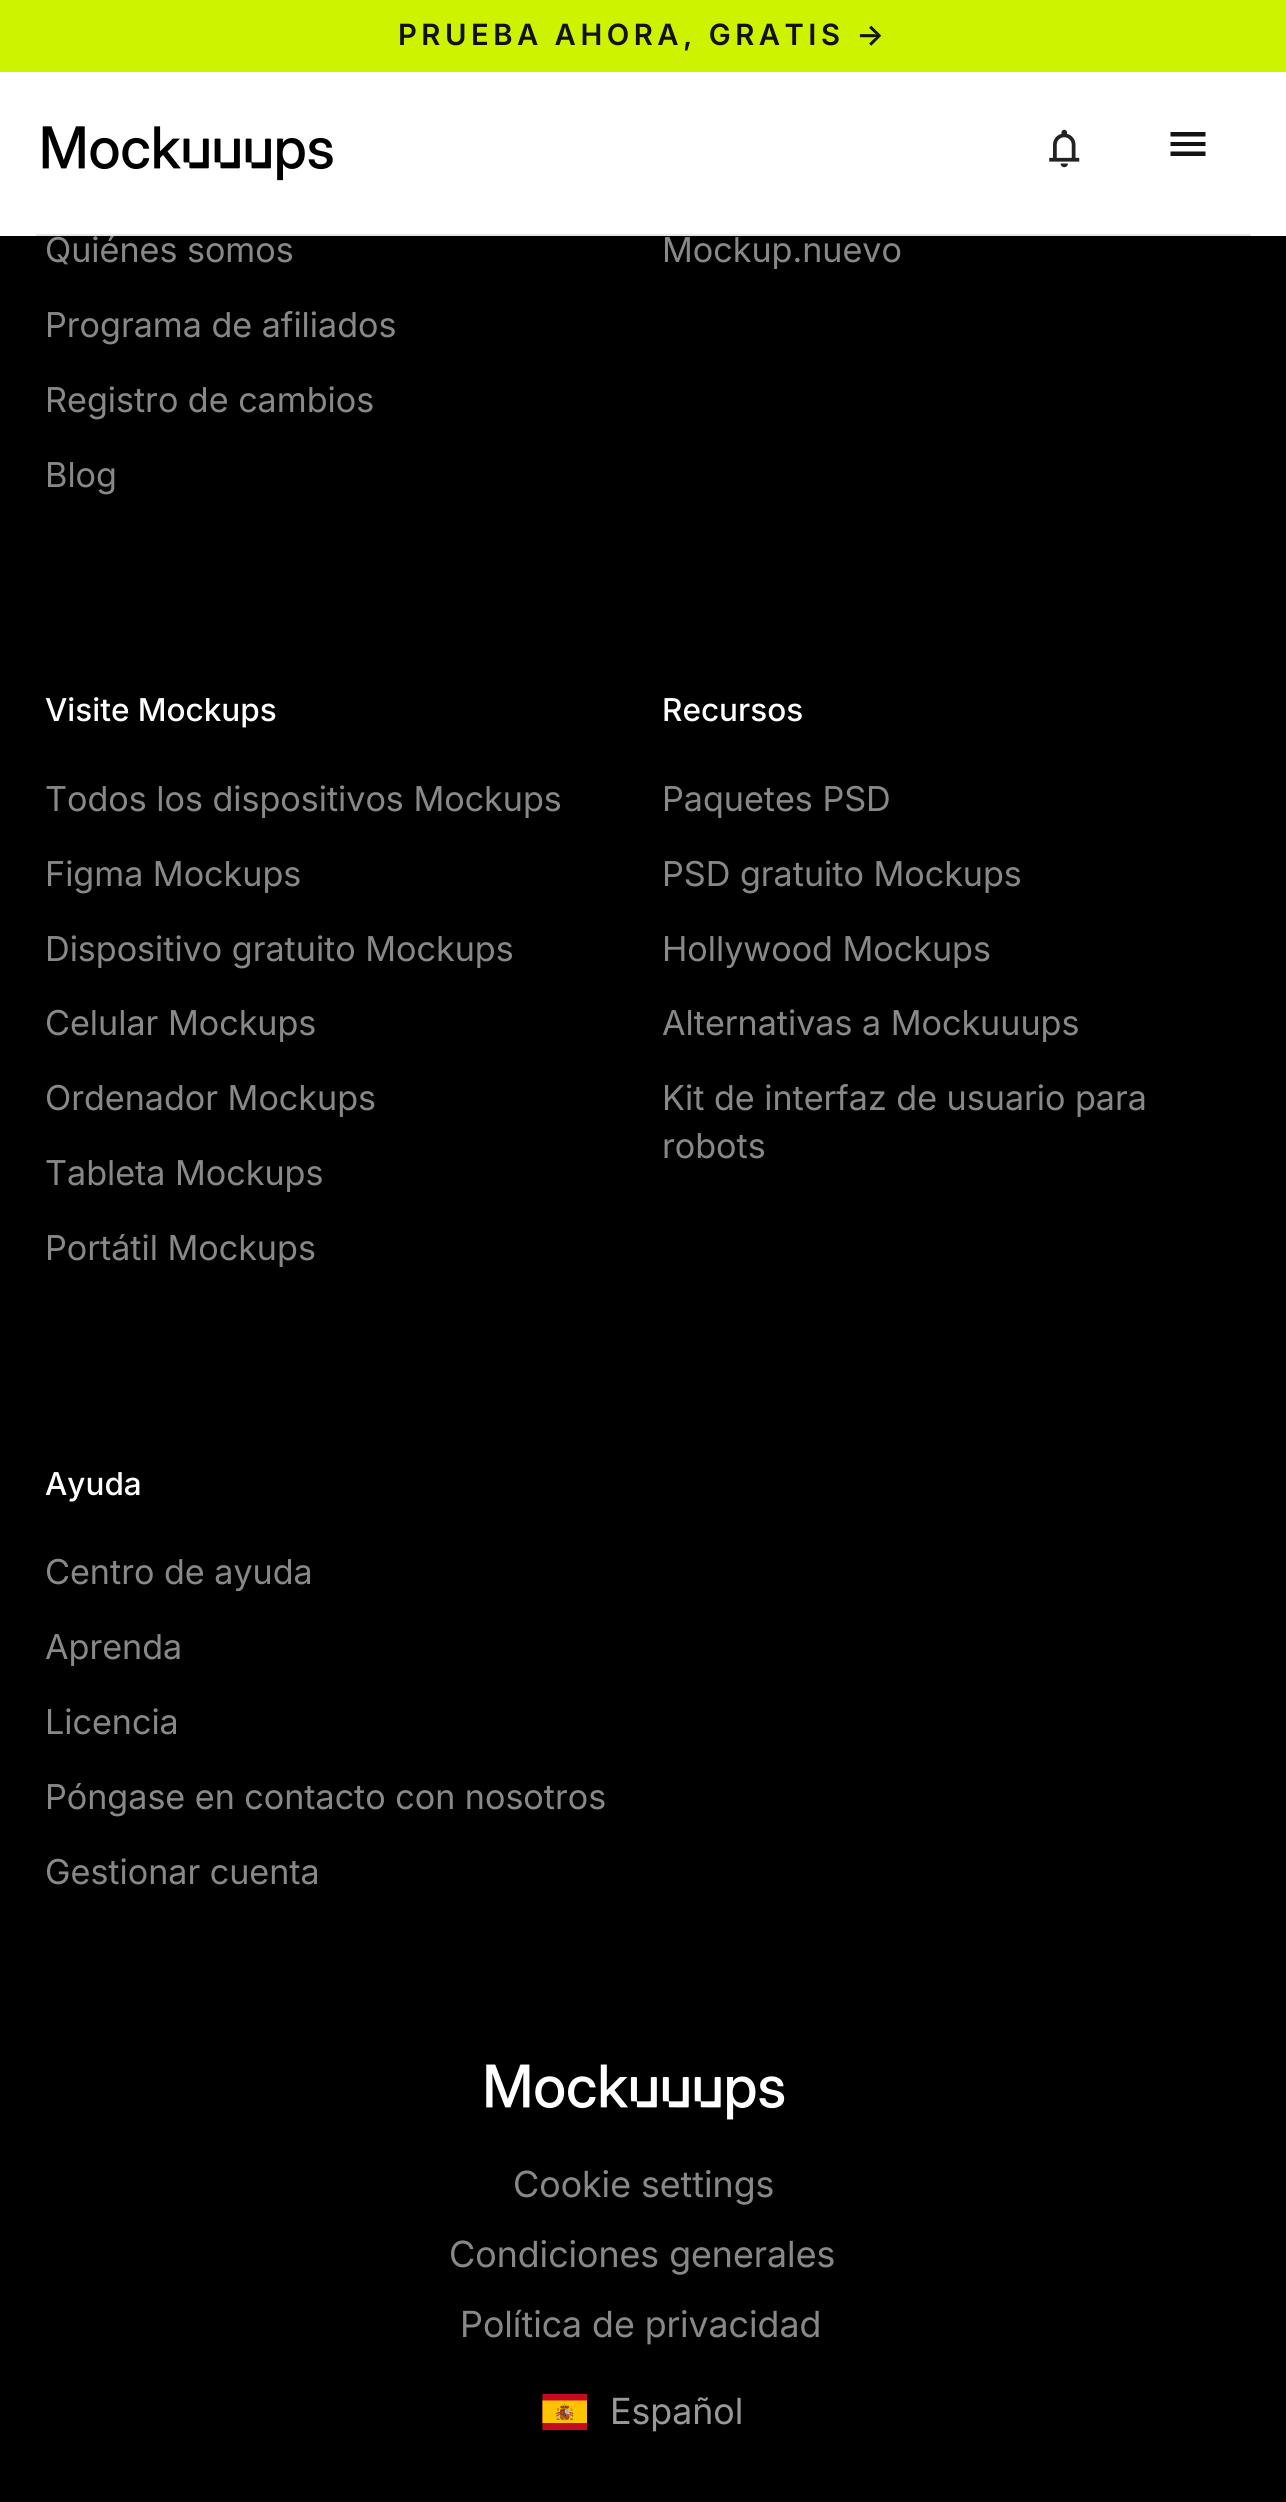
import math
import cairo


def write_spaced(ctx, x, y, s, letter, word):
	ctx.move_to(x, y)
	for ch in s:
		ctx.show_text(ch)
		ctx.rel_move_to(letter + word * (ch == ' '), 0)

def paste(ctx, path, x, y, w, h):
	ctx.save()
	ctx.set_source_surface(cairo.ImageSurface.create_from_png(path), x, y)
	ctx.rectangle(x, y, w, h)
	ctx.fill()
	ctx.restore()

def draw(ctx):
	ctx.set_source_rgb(0, 0, 0)
	ctx.paint()
	ctx.set_source_rgb(1, 1, 1)
	ctx.rectangle(0, 72, 1286, 164)
	ctx.fill()
	ctx.set_source_rgb(0.804, 0.953, 0)
	ctx.rectangle(0, 0, 1286, 72)
	ctx.fill()
	ctx.select_font_face('Inter SemiBold')
	ctx.set_font_size(29.25)
	ctx.set_source_rgb(0.071, 0.071, 0.071)
	write_spaced(ctx, 398, 45, 'PRUEBA AHORA, GRATIS →', 4.5, 0)
	paste(ctx, 'media/1.png', 42, 126, 291, 55)
	paste(ctx, 'media/2.png', 1049, 129, 31, 39)
	ctx.new_path()
	ctx.move_to(1170.5, 156)
	ctx.line_to(1170.5, 151.5)
	ctx.line_to(1205.5, 151.5)
	ctx.line_to(1205.5, 156)
	ctx.close_path()
	ctx.move_to(1170.5, 146)
	ctx.line_to(1170.5, 142)
	ctx.line_to(1205.5, 142)
	ctx.line_to(1205.5, 146)
	ctx.close_path()
	ctx.move_to(1170.5, 136.5)
	ctx.line_to(1170.5, 132)
	ctx.line_to(1205.5, 132)
	ctx.line_to(1205.5, 136.5)
	ctx.close_path()
	ctx.fill()
	ctx.set_source_rgb(0.906, 0.906, 0.906)
	ctx.rectangle(36, 234, 1215, 2)
	ctx.fill()
	ctx.select_font_face('Inter')
	ctx.set_font_size(34.25)
	ctx.set_source_rgb(0.533, 0.533, 0.533)
	for x, y, s in [
		(45, 262, 'Quiénes somos'),
		(45, 337, 'Programa de afiliados'),
		(45, 412, 'Registro de cambios'),
		(45, 487, 'Blog'),
		(662, 262, 'Mockup.nuevo'),
	]:
		ctx.move_to(x, y)
		ctx.show_text(s)
	ctx.select_font_face('Inter Medium')
	ctx.set_font_size(31.5)
	ctx.set_source_rgb(1, 1, 1)
	ctx.move_to(45, 721)
	ctx.show_text('Visite Mockups')
	ctx.select_font_face('Inter')
	ctx.set_font_size(34.25)
	ctx.set_source_rgb(0.533, 0.533, 0.533)
	for x, y, s in [
		(45, 811, 'Todos los dispositivos Mockups'),
		(45, 886, 'Figma Mockups'),
		(45, 961, 'Dispositivo gratuito Mockups'),
		(45, 1035, 'Celular Mockups'),
		(45, 1110, 'Ordenador Mockups'),
		(45, 1185, 'Tableta Mockups'),
		(45, 1260, 'Portátil Mockups'),
	]:
		ctx.move_to(x, y)
		ctx.show_text(s)
	ctx.select_font_face('Inter Medium')
	ctx.set_font_size(31.5)
	ctx.set_source_rgb(1, 1, 1)
	ctx.move_to(662, 721)
	ctx.show_text('Recursos')
	ctx.select_font_face('Inter')
	ctx.set_font_size(34.25)
	ctx.set_source_rgb(0.533, 0.533, 0.533)
	for x, y, s in [
		(662, 811, 'Paquetes PSD'),
		(662, 886, 'PSD gratuito Mockups'),
		(662, 961, 'Hollywood Mockups'),
		(662, 1035, 'Alternativas a Mockuuups'),
		(662, 1110, 'Kit de interfaz de usuario para'),
		(662, 1158, 'robots'),
	]:
		ctx.move_to(x, y)
		ctx.show_text(s)
	ctx.select_font_face('Inter Medium')
	ctx.set_font_size(31.5)
	ctx.set_source_rgb(1, 1, 1)
	ctx.move_to(45, 1495)
	ctx.show_text('Ayuda')
	ctx.select_font_face('Inter')
	ctx.set_font_size(34.25)
	ctx.set_source_rgb(0.533, 0.533, 0.533)
	for x, y, s in [
		(45, 1584, 'Centro de ayuda'),
		(45, 1659, 'Aprenda'),
		(45, 1734, 'Licencia'),
		(45, 1809, 'Póngase en contacto con nosotros'),
		(45, 1884, 'Gestionar cuenta'),
	]:
		ctx.move_to(x, y)
		ctx.show_text(s)
	paste(ctx, 'media/3.png', 486, 2064, 299, 56)
	ctx.select_font_face('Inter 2')
	ctx.set_font_size(36)
	for x, y, s in [
		(513, 2197, 'Cookie settings'),
		(449, 2267, 'Condiciones generales'),
		(460, 2337, 'Política de privacidad'),
	]:
		ctx.move_to(x, y)
		ctx.show_text(s)
	paste(ctx, 'media/4.png', 542, 2394, 45, 36)
	ctx.set_source_rgb(0.6, 0.6, 0.6)
	ctx.move_to(610, 2424)
	ctx.show_text('Español')


surface = cairo.ImageSurface(cairo.FORMAT_RGB24, 1286, 2502)
ctx = cairo.Context(surface)
options = cairo.FontOptions()
options.set_hint_metrics(cairo.HINT_METRICS_OFF)
options.set_hint_style(cairo.HINT_STYLE_NONE)
ctx.set_font_options(options)
ctx.set_miter_limit(4)
draw(ctx)
surface.write_to_png('image.png')
